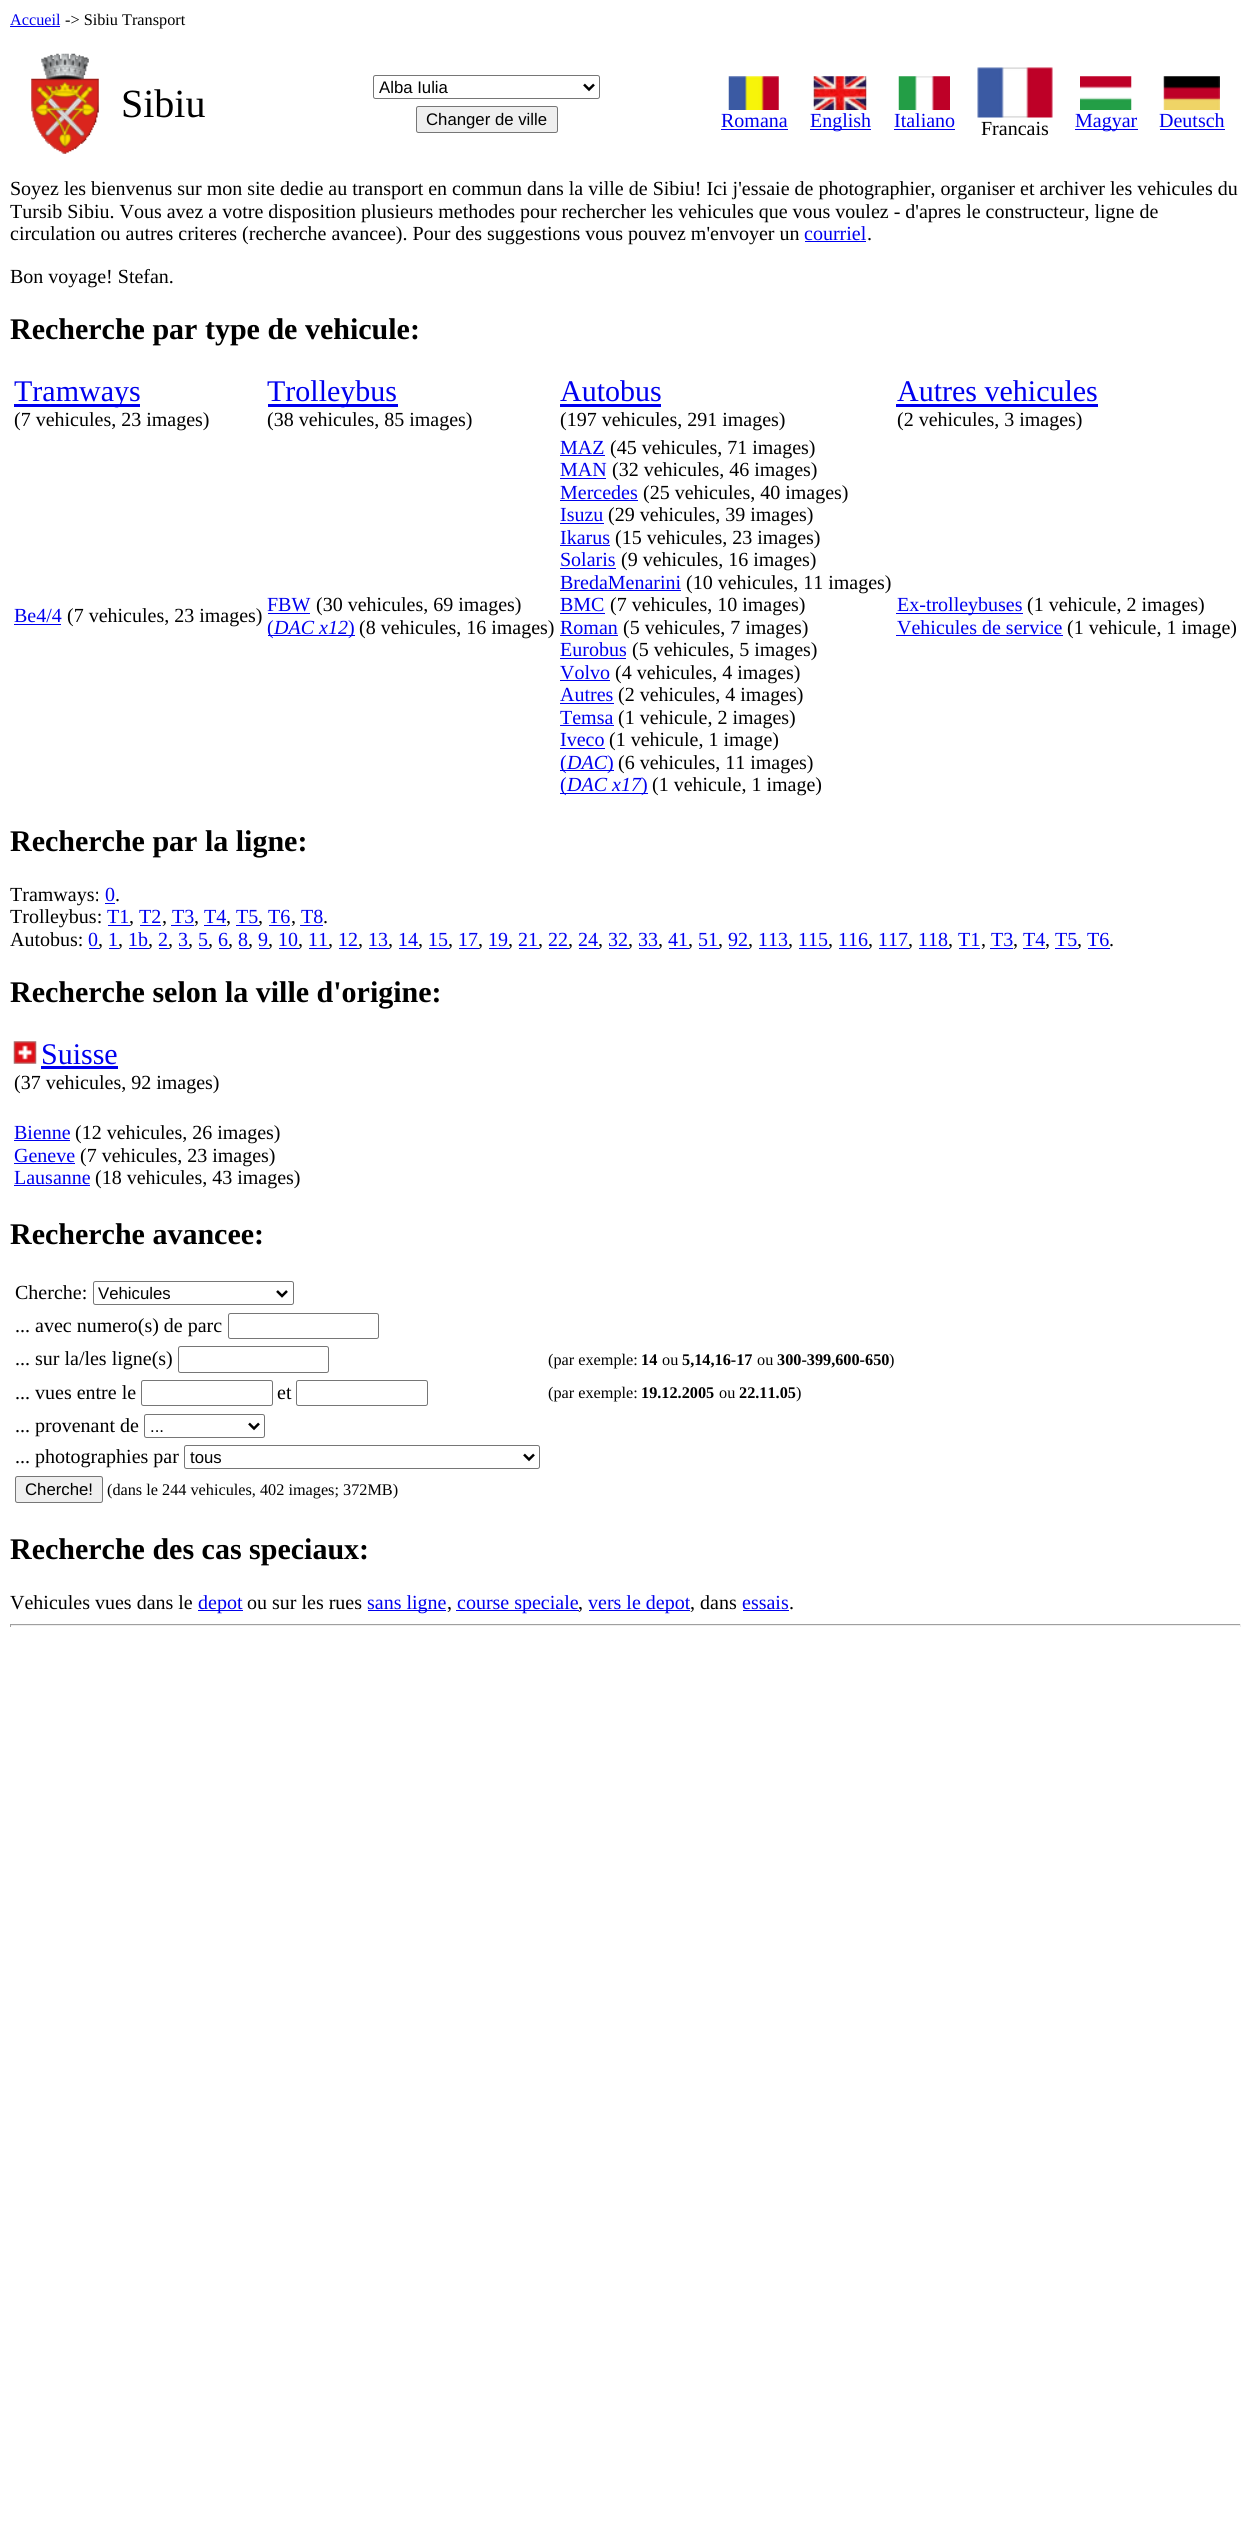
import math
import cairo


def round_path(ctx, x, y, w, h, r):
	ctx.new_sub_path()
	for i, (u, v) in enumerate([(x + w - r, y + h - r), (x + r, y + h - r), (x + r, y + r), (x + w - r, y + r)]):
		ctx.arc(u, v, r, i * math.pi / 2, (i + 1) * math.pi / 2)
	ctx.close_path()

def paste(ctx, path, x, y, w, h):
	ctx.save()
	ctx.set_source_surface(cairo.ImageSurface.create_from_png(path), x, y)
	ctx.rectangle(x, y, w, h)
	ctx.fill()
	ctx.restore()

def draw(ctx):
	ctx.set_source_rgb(1, 1, 1)
	ctx.paint()
	ctx.select_font_face('Liberation Serif')
	ctx.set_font_size(16.25)
	ctx.set_source_rgb(0, 0, 0.933)
	ctx.move_to(10, 25)
	ctx.show_text('Accueil')
	ctx.rectangle(10, 26, 50, 1)
	ctx.fill()
	ctx.set_source_rgb(0, 0, 0)
	ctx.move_to(65, 25)
	ctx.show_text('-> Sibiu Transport')
	paste(ctx, 'media/1.png', 31, 53, 68, 101)
	ctx.set_font_size(40)
	ctx.move_to(121, 117)
	ctx.show_text('Sibiu')
	round_path(ctx, 373.5, 75.5, 226, 23, 2)
	ctx.set_source_rgb(0.463, 0.463, 0.463)
	ctx.set_line_width(1)
	ctx.stroke()
	ctx.new_path()
	ctx.move_to(584, 84.5)
	ctx.line_to(589, 89.5)
	ctx.line_to(594, 84.5)
	ctx.set_source_rgb(0, 0, 0)
	ctx.set_line_width(2.5)
	ctx.stroke()
	ctx.select_font_face('Liberation Sans')
	ctx.set_font_size(16.75)
	ctx.move_to(379, 93)
	ctx.show_text('Alba Iulia')
	ctx.set_source_rgb(0.937, 0.937, 0.937)
	round_path(ctx, 416.5, 106.5, 141, 26, 2)
	ctx.fill_preserve()
	ctx.set_source_rgb(0.463, 0.463, 0.463)
	ctx.set_line_width(1)
	ctx.stroke()
	ctx.set_source_rgb(0, 0, 0)
	ctx.move_to(426, 125)
	ctx.show_text('Changer de ville')
	paste(ctx, 'media/2.png', 728, 76, 51, 34)
	ctx.select_font_face('Liberation Serif')
	ctx.set_font_size(20)
	ctx.set_source_rgb(0, 0, 0.933)
	ctx.move_to(721, 127)
	ctx.show_text('Romana')
	ctx.rectangle(721, 129, 67, 1)
	ctx.fill()
	paste(ctx, 'media/3.png', 813, 76, 54, 34)
	ctx.rectangle(810, 129, 61, 1)
	ctx.fill()
	ctx.move_to(810, 127)
	ctx.show_text('English')
	paste(ctx, 'media/4.png', 898, 76, 52, 34)
	ctx.move_to(894, 127)
	ctx.show_text('Italiano')
	ctx.rectangle(894, 129, 61, 1)
	ctx.fill()
	paste(ctx, 'media/5.png', 977, 67, 76, 51)
	ctx.set_source_rgb(0, 0, 0)
	ctx.move_to(981, 135)
	ctx.show_text('Francais')
	paste(ctx, 'media/6.png', 1080, 76, 52, 34)
	ctx.set_source_rgb(0, 0, 0.933)
	ctx.rectangle(1075, 129, 63, 1)
	ctx.fill()
	ctx.move_to(1075, 127)
	ctx.show_text('Magyar')
	paste(ctx, 'media/7.png', 1163, 76, 57, 34)
	ctx.move_to(1159, 127)
	ctx.show_text('Deutsch')
	ctx.rectangle(1160, 129, 65, 1)
	ctx.fill()
	ctx.set_source_rgb(0, 0, 0)
	for x, y, s in [
		(10, 195, 'Soyez les bienvenus sur mon site dedie au transport en commun dans la ville de Sibiu! Ici j\'essaie de photographier, organiser et archiver les vehicules du'),
		(10, 218, 'Tursib Sibiu. Vous avez a votre disposition plusieurs methodes pour rechercher les vehicules que vous voulez - d\'apres le constructeur, ligne de'),
		(10, 240, 'circulation ou autres criteres (recherche avancee). Pour des suggestions vous pouvez m\'envoyer un'),
	]:
		ctx.move_to(x, y)
		ctx.show_text(s)
	ctx.set_source_rgb(0, 0, 0.933)
	ctx.move_to(804, 240)
	ctx.show_text('courriel')
	ctx.rectangle(805, 241, 61, 1)
	ctx.fill()
	ctx.set_source_rgb(0, 0, 0)
	ctx.move_to(867, 240)
	ctx.show_text('.')
	ctx.move_to(10, 283)
	ctx.show_text('Bon voyage! Stefan.')
	ctx.select_font_face('Liberation Serif', cairo.FONT_SLANT_NORMAL, cairo.FONT_WEIGHT_BOLD)
	ctx.set_font_size(30)
	ctx.move_to(10, 339)
	ctx.show_text('Recherche par type de vehicule:')
	ctx.set_source_rgb(0, 0, 0.933)
	ctx.rectangle(14, 404, 126, 3)
	ctx.fill()
	ctx.select_font_face('Liberation Serif')
	ctx.move_to(14, 401)
	ctx.show_text('Tramways')
	ctx.set_font_size(20)
	ctx.set_source_rgb(0, 0, 0)
	ctx.move_to(14, 426)
	ctx.show_text('(7 vehicules, 23 images)')
	ctx.set_source_rgb(0, 0, 0.933)
	ctx.rectangle(268, 404, 130, 3)
	ctx.fill()
	ctx.set_font_size(30)
	ctx.move_to(267, 401)
	ctx.show_text('Trolleybus')
	ctx.set_font_size(20)
	ctx.set_source_rgb(0, 0, 0)
	ctx.move_to(267, 426)
	ctx.show_text('(38 vehicules, 85 images)')
	ctx.set_font_size(30)
	ctx.set_source_rgb(0, 0, 0.933)
	ctx.move_to(560, 401)
	ctx.show_text('Autobus')
	ctx.rectangle(560, 404, 101, 3)
	ctx.fill()
	ctx.set_font_size(20)
	ctx.set_source_rgb(0, 0, 0)
	ctx.move_to(560, 426)
	ctx.show_text('(197 vehicules, 291 images)')
	ctx.set_font_size(30)
	ctx.set_source_rgb(0, 0, 0.933)
	ctx.move_to(897, 401)
	ctx.show_text('Autres vehicules')
	ctx.rectangle(896, 404, 202, 3)
	ctx.fill()
	ctx.set_font_size(20)
	ctx.set_source_rgb(0, 0, 0)
	ctx.move_to(897, 426)
	ctx.show_text('(2 vehicules, 3 images)')
	ctx.set_source_rgb(0, 0, 0.933)
	ctx.move_to(14, 622)
	ctx.show_text('Be4/4')
	ctx.rectangle(14, 624, 47, 1)
	ctx.fill()
	ctx.set_source_rgb(0, 0, 0)
	ctx.move_to(67, 622)
	ctx.show_text('(7 vehicules, 23 images)')
	ctx.set_source_rgb(0, 0, 0.933)
	ctx.move_to(267, 611)
	ctx.show_text('FBW')
	ctx.rectangle(268, 613, 42, 1)
	ctx.fill()
	ctx.set_source_rgb(0, 0, 0)
	ctx.move_to(316, 611)
	ctx.show_text('(30 vehicules, 69 images)')
	ctx.set_source_rgb(0, 0, 0.933)
	ctx.rectangle(268, 635, 87, 1)
	ctx.fill()
	ctx.move_to(267, 634)
	ctx.show_text('(')
	ctx.select_font_face('Liberation Serif', cairo.FONT_SLANT_ITALIC)
	ctx.move_to(274, 634)
	ctx.show_text('DAC x12')
	ctx.select_font_face('Liberation Serif')
	ctx.move_to(348, 634)
	ctx.show_text(')')
	ctx.set_source_rgb(0, 0, 0)
	ctx.move_to(359, 634)
	ctx.show_text('(8 vehicules, 16 images)')
	ctx.set_source_rgb(0, 0, 0.933)
	ctx.move_to(560, 454)
	ctx.show_text('MAZ')
	ctx.rectangle(560, 455, 45, 1)
	ctx.fill()
	ctx.set_source_rgb(0, 0, 0)
	ctx.move_to(610, 454)
	ctx.show_text('(45 vehicules, 71 images)')
	ctx.set_source_rgb(0, 0, 0.933)
	ctx.move_to(560, 476)
	ctx.show_text('MAN')
	ctx.rectangle(560, 478, 46, 1)
	ctx.fill()
	ctx.set_source_rgb(0, 0, 0)
	ctx.move_to(612, 476)
	ctx.show_text('(32 vehicules, 46 images)')
	ctx.set_source_rgb(0, 0, 0.933)
	ctx.move_to(560, 499)
	ctx.show_text('Mercedes')
	ctx.rectangle(560, 500, 78, 1)
	ctx.fill()
	ctx.set_source_rgb(0, 0, 0)
	ctx.move_to(643, 499)
	ctx.show_text('(25 vehicules, 40 images)')
	ctx.set_source_rgb(0, 0, 0.933)
	ctx.move_to(560, 521)
	ctx.show_text('Isuzu')
	ctx.rectangle(560, 523, 44, 1)
	ctx.fill()
	ctx.set_source_rgb(0, 0, 0)
	ctx.move_to(608, 521)
	ctx.show_text('(29 vehicules, 39 images)')
	ctx.set_source_rgb(0, 0, 0.933)
	ctx.move_to(560, 544)
	ctx.show_text('Ikarus')
	ctx.rectangle(560, 545, 50, 1)
	ctx.fill()
	ctx.set_source_rgb(0, 0, 0)
	ctx.move_to(615, 544)
	ctx.show_text('(15 vehicules, 23 images)')
	ctx.set_source_rgb(0, 0, 0.933)
	ctx.move_to(560, 566)
	ctx.show_text('Solaris')
	ctx.rectangle(560, 568, 56, 1)
	ctx.fill()
	ctx.set_source_rgb(0, 0, 0)
	ctx.move_to(621, 566)
	ctx.show_text('(9 vehicules, 16 images)')
	ctx.set_source_rgb(0, 0, 0.933)
	ctx.move_to(560, 589)
	ctx.show_text('BredaMenarini')
	ctx.rectangle(560, 590, 121, 1)
	ctx.fill()
	ctx.set_source_rgb(0, 0, 0)
	ctx.move_to(686, 589)
	ctx.show_text('(10 vehicules, 11 images)')
	ctx.set_source_rgb(0, 0, 0.933)
	ctx.move_to(560, 611)
	ctx.show_text('BMC')
	ctx.rectangle(560, 613, 45, 1)
	ctx.fill()
	ctx.set_source_rgb(0, 0, 0)
	ctx.move_to(610, 611)
	ctx.show_text('(7 vehicules, 10 images)')
	ctx.set_source_rgb(0, 0, 0.933)
	ctx.move_to(560, 634)
	ctx.show_text('Roman')
	ctx.rectangle(560, 635, 58, 1)
	ctx.fill()
	ctx.set_source_rgb(0, 0, 0)
	ctx.move_to(623, 634)
	ctx.show_text('(5 vehicules, 7 images)')
	ctx.set_source_rgb(0, 0, 0.933)
	ctx.move_to(560, 656)
	ctx.show_text('Eurobus')
	ctx.rectangle(560, 658, 66, 1)
	ctx.fill()
	ctx.set_source_rgb(0, 0, 0)
	ctx.move_to(632, 656)
	ctx.show_text('(5 vehicules, 5 images)')
	ctx.set_source_rgb(0, 0, 0.933)
	ctx.move_to(560, 679)
	ctx.show_text('Volvo')
	ctx.rectangle(560, 680, 50, 1)
	ctx.fill()
	ctx.set_source_rgb(0, 0, 0)
	ctx.move_to(615, 679)
	ctx.show_text('(4 vehicules, 4 images)')
	ctx.set_source_rgb(0, 0, 0.933)
	ctx.move_to(560, 701)
	ctx.show_text('Autres')
	ctx.rectangle(560, 703, 54, 1)
	ctx.fill()
	ctx.set_source_rgb(0, 0, 0)
	ctx.move_to(618, 701)
	ctx.show_text('(2 vehicules, 4 images)')
	ctx.set_source_rgb(0, 0, 0.933)
	ctx.move_to(560, 724)
	ctx.show_text('Temsa')
	ctx.rectangle(560, 725, 54, 1)
	ctx.fill()
	ctx.set_source_rgb(0, 0, 0)
	ctx.move_to(618, 724)
	ctx.show_text('(1 vehicule, 2 images)')
	ctx.set_source_rgb(0, 0, 0.933)
	ctx.move_to(560, 746)
	ctx.show_text('Iveco')
	ctx.rectangle(560, 748, 45, 1)
	ctx.fill()
	ctx.set_source_rgb(0, 0, 0)
	ctx.move_to(609, 746)
	ctx.show_text('(1 vehicule, 1 image)')
	ctx.set_source_rgb(0, 0, 0.933)
	ctx.rectangle(560, 770, 6, 1)
	ctx.fill()
	ctx.move_to(560, 769)
	ctx.show_text('(')
	ctx.rectangle(566, 770, 48, 1)
	ctx.fill()
	ctx.select_font_face('Liberation Serif', cairo.FONT_SLANT_ITALIC)
	ctx.move_to(567, 769)
	ctx.show_text('DAC')
	ctx.select_font_face('Liberation Serif')
	ctx.move_to(607, 769)
	ctx.show_text(')')
	ctx.set_source_rgb(0, 0, 0)
	ctx.move_to(618, 769)
	ctx.show_text('(6 vehicules, 11 images)')
	ctx.set_source_rgb(0, 0, 0.933)
	ctx.rectangle(560, 793, 6, 1)
	ctx.fill()
	ctx.move_to(560, 791)
	ctx.show_text('(')
	ctx.rectangle(566, 793, 82, 1)
	ctx.fill()
	ctx.select_font_face('Liberation Serif', cairo.FONT_SLANT_ITALIC)
	ctx.move_to(567, 791)
	ctx.show_text('DAC x17')
	ctx.select_font_face('Liberation Serif')
	ctx.move_to(641, 791)
	ctx.show_text(')')
	ctx.set_source_rgb(0, 0, 0)
	ctx.move_to(652, 791)
	ctx.show_text('(1 vehicule, 1 image)')
	ctx.set_source_rgb(0, 0, 0.933)
	ctx.rectangle(896, 613, 127, 1)
	ctx.fill()
	ctx.move_to(897, 611)
	ctx.show_text('Ex-trolleybuses')
	ctx.set_source_rgb(0, 0, 0)
	ctx.move_to(1027, 611)
	ctx.show_text('(1 vehicule, 2 images)')
	ctx.set_source_rgb(0, 0, 0.933)
	ctx.move_to(897, 634)
	ctx.show_text('Vehicules de service')
	ctx.rectangle(896, 635, 167, 1)
	ctx.fill()
	ctx.set_source_rgb(0, 0, 0)
	ctx.move_to(1067, 634)
	ctx.show_text('(1 vehicule, 1 image)')
	ctx.select_font_face('Liberation Serif', cairo.FONT_SLANT_NORMAL, cairo.FONT_WEIGHT_BOLD)
	ctx.set_font_size(30)
	ctx.move_to(10, 851)
	ctx.show_text('Recherche par la ligne:')
	ctx.select_font_face('Liberation Serif')
	ctx.set_font_size(20)
	ctx.move_to(10, 901)
	ctx.show_text('Tramways:')
	ctx.set_source_rgb(0, 0, 0.933)
	ctx.move_to(105, 901)
	ctx.show_text('0')
	ctx.rectangle(105, 903, 10, 1)
	ctx.fill()
	ctx.set_source_rgb(0, 0, 0)
	ctx.move_to(115, 901)
	ctx.show_text('.')
	ctx.move_to(10, 923)
	ctx.show_text('Trolleybus:')
	ctx.set_source_rgb(0, 0, 0.933)
	ctx.move_to(107, 923)
	ctx.show_text('T1')
	ctx.rectangle(108, 925, 22, 1)
	ctx.fill()
	ctx.set_source_rgb(0, 0, 0)
	ctx.move_to(129, 923)
	ctx.show_text(',')
	ctx.set_source_rgb(0, 0, 0.933)
	ctx.move_to(139, 923)
	ctx.show_text('T2')
	ctx.rectangle(140, 925, 21, 1)
	ctx.fill()
	ctx.set_source_rgb(0, 0, 0)
	ctx.move_to(162, 923)
	ctx.show_text(',')
	ctx.set_source_rgb(0, 0, 0.933)
	ctx.move_to(172, 923)
	ctx.show_text('T3')
	ctx.rectangle(171, 925, 23, 1)
	ctx.fill()
	ctx.set_source_rgb(0, 0, 0)
	ctx.move_to(194, 923)
	ctx.show_text(',')
	ctx.set_source_rgb(0, 0, 0.933)
	ctx.move_to(204, 923)
	ctx.show_text('T4')
	ctx.rectangle(204, 925, 22, 1)
	ctx.fill()
	ctx.set_source_rgb(0, 0, 0)
	ctx.move_to(226, 923)
	ctx.show_text(',')
	ctx.set_source_rgb(0, 0, 0.933)
	ctx.move_to(236, 923)
	ctx.show_text('T5')
	ctx.rectangle(236, 925, 23, 1)
	ctx.fill()
	ctx.set_source_rgb(0, 0, 0)
	ctx.move_to(258, 923)
	ctx.show_text(',')
	ctx.set_source_rgb(0, 0, 0.933)
	ctx.move_to(268, 923)
	ctx.show_text('T6')
	ctx.rectangle(269, 925, 21, 1)
	ctx.fill()
	ctx.set_source_rgb(0, 0, 0)
	ctx.move_to(291, 923)
	ctx.show_text(',')
	ctx.set_source_rgb(0, 0, 0.933)
	ctx.move_to(301, 923)
	ctx.show_text('T8')
	ctx.rectangle(300, 925, 23, 1)
	ctx.fill()
	ctx.set_source_rgb(0, 0, 0)
	ctx.move_to(323, 923)
	ctx.show_text('.')
	ctx.move_to(10, 946)
	ctx.show_text('Autobus:')
	ctx.set_source_rgb(0, 0, 0.933)
	ctx.move_to(88, 946)
	ctx.show_text('0')
	ctx.rectangle(89, 948, 10, 1)
	ctx.fill()
	ctx.set_source_rgb(0, 0, 0)
	ctx.move_to(98, 946)
	ctx.show_text(',')
	ctx.set_source_rgb(0, 0, 0.933)
	ctx.move_to(108, 946)
	ctx.show_text('1')
	ctx.rectangle(109, 948, 10, 1)
	ctx.fill()
	ctx.set_source_rgb(0, 0, 0)
	ctx.move_to(118, 946)
	ctx.show_text(',')
	ctx.set_source_rgb(0, 0, 0.933)
	ctx.move_to(128, 946)
	ctx.show_text('1b')
	ctx.rectangle(129, 948, 20, 1)
	ctx.fill()
	ctx.set_source_rgb(0, 0, 0)
	ctx.move_to(148, 946)
	ctx.show_text(',')
	ctx.set_source_rgb(0, 0, 0.933)
	ctx.move_to(158, 946)
	ctx.show_text('2')
	ctx.rectangle(159, 948, 10, 1)
	ctx.fill()
	ctx.set_source_rgb(0, 0, 0)
	ctx.move_to(168, 946)
	ctx.show_text(',')
	ctx.set_source_rgb(0, 0, 0.933)
	ctx.move_to(178, 946)
	ctx.show_text('3')
	ctx.rectangle(179, 948, 10, 1)
	ctx.fill()
	ctx.set_source_rgb(0, 0, 0)
	ctx.move_to(188, 946)
	ctx.show_text(',')
	ctx.set_source_rgb(0, 0, 0.933)
	ctx.move_to(198, 946)
	ctx.show_text('5')
	ctx.rectangle(199, 948, 10, 1)
	ctx.fill()
	ctx.set_source_rgb(0, 0, 0)
	ctx.move_to(208, 946)
	ctx.show_text(',')
	ctx.set_source_rgb(0, 0, 0.933)
	ctx.move_to(218, 946)
	ctx.show_text('6')
	ctx.rectangle(219, 948, 10, 1)
	ctx.fill()
	ctx.set_source_rgb(0, 0, 0)
	ctx.move_to(228, 946)
	ctx.show_text(',')
	ctx.set_source_rgb(0, 0, 0.933)
	ctx.move_to(238, 946)
	ctx.show_text('8')
	ctx.rectangle(239, 948, 10, 1)
	ctx.fill()
	ctx.set_source_rgb(0, 0, 0)
	ctx.move_to(248, 946)
	ctx.show_text(',')
	ctx.set_source_rgb(0, 0, 0.933)
	ctx.move_to(258, 946)
	ctx.show_text('9')
	ctx.rectangle(259, 948, 10, 1)
	ctx.fill()
	ctx.set_source_rgb(0, 0, 0)
	ctx.move_to(268, 946)
	ctx.show_text(',')
	ctx.set_source_rgb(0, 0, 0.933)
	ctx.move_to(278, 946)
	ctx.show_text('10')
	ctx.rectangle(279, 948, 20, 1)
	ctx.fill()
	ctx.set_source_rgb(0, 0, 0)
	ctx.move_to(298, 946)
	ctx.show_text(',')
	ctx.set_source_rgb(0, 0, 0.933)
	ctx.move_to(308, 946)
	ctx.show_text('11')
	ctx.rectangle(309, 948, 20, 1)
	ctx.fill()
	ctx.set_source_rgb(0, 0, 0)
	ctx.move_to(328, 946)
	ctx.show_text(',')
	ctx.set_source_rgb(0, 0, 0.933)
	ctx.move_to(338, 946)
	ctx.show_text('12')
	ctx.rectangle(339, 948, 20, 1)
	ctx.fill()
	ctx.set_source_rgb(0, 0, 0)
	ctx.move_to(358, 946)
	ctx.show_text(',')
	ctx.set_source_rgb(0, 0, 0.933)
	ctx.move_to(368, 946)
	ctx.show_text('13')
	ctx.rectangle(369, 948, 20, 1)
	ctx.fill()
	ctx.set_source_rgb(0, 0, 0)
	ctx.move_to(388, 946)
	ctx.show_text(',')
	ctx.set_source_rgb(0, 0, 0.933)
	ctx.move_to(398, 946)
	ctx.show_text('14')
	ctx.rectangle(399, 948, 20, 1)
	ctx.fill()
	ctx.set_source_rgb(0, 0, 0)
	ctx.move_to(418, 946)
	ctx.show_text(',')
	ctx.set_source_rgb(0, 0, 0.933)
	ctx.move_to(428, 946)
	ctx.show_text('15')
	ctx.rectangle(429, 948, 20, 1)
	ctx.fill()
	ctx.set_source_rgb(0, 0, 0)
	ctx.move_to(448, 946)
	ctx.show_text(',')
	ctx.set_source_rgb(0, 0, 0.933)
	ctx.move_to(458, 946)
	ctx.show_text('17')
	ctx.rectangle(459, 948, 20, 1)
	ctx.fill()
	ctx.set_source_rgb(0, 0, 0)
	ctx.move_to(478, 946)
	ctx.show_text(',')
	ctx.set_source_rgb(0, 0, 0.933)
	ctx.move_to(488, 946)
	ctx.show_text('19')
	ctx.rectangle(489, 948, 20, 1)
	ctx.fill()
	ctx.set_source_rgb(0, 0, 0)
	ctx.move_to(508, 946)
	ctx.show_text(',')
	ctx.set_source_rgb(0, 0, 0.933)
	ctx.move_to(518, 946)
	ctx.show_text('21')
	ctx.rectangle(519, 948, 20, 1)
	ctx.fill()
	ctx.set_source_rgb(0, 0, 0)
	ctx.move_to(538, 946)
	ctx.show_text(',')
	ctx.set_source_rgb(0, 0, 0.933)
	ctx.move_to(548, 946)
	ctx.show_text('22')
	ctx.rectangle(549, 948, 20, 1)
	ctx.fill()
	ctx.set_source_rgb(0, 0, 0)
	ctx.move_to(568, 946)
	ctx.show_text(',')
	ctx.set_source_rgb(0, 0, 0.933)
	ctx.move_to(578, 946)
	ctx.show_text('24')
	ctx.rectangle(579, 948, 20, 1)
	ctx.fill()
	ctx.set_source_rgb(0, 0, 0)
	ctx.move_to(598, 946)
	ctx.show_text(',')
	ctx.set_source_rgb(0, 0, 0.933)
	ctx.move_to(608, 946)
	ctx.show_text('32')
	ctx.rectangle(609, 948, 20, 1)
	ctx.fill()
	ctx.set_source_rgb(0, 0, 0)
	ctx.move_to(628, 946)
	ctx.show_text(',')
	ctx.set_source_rgb(0, 0, 0.933)
	ctx.move_to(638, 946)
	ctx.show_text('33')
	ctx.rectangle(639, 948, 20, 1)
	ctx.fill()
	ctx.set_source_rgb(0, 0, 0)
	ctx.move_to(658, 946)
	ctx.show_text(',')
	ctx.set_source_rgb(0, 0, 0.933)
	ctx.move_to(668, 946)
	ctx.show_text('41')
	ctx.rectangle(669, 948, 20, 1)
	ctx.fill()
	ctx.set_source_rgb(0, 0, 0)
	ctx.move_to(688, 946)
	ctx.show_text(',')
	ctx.set_source_rgb(0, 0, 0.933)
	ctx.move_to(698, 946)
	ctx.show_text('51')
	ctx.rectangle(699, 948, 20, 1)
	ctx.fill()
	ctx.set_source_rgb(0, 0, 0)
	ctx.move_to(718, 946)
	ctx.show_text(',')
	ctx.set_source_rgb(0, 0, 0.933)
	ctx.move_to(728, 946)
	ctx.show_text('92')
	ctx.rectangle(729, 948, 20, 1)
	ctx.fill()
	ctx.set_source_rgb(0, 0, 0)
	ctx.move_to(748, 946)
	ctx.show_text(',')
	ctx.set_source_rgb(0, 0, 0.933)
	ctx.move_to(758, 946)
	ctx.show_text('113')
	ctx.rectangle(759, 948, 30, 1)
	ctx.fill()
	ctx.set_source_rgb(0, 0, 0)
	ctx.move_to(788, 946)
	ctx.show_text(',')
	ctx.set_source_rgb(0, 0, 0.933)
	ctx.move_to(798, 946)
	ctx.show_text('115')
	ctx.rectangle(799, 948, 30, 1)
	ctx.fill()
	ctx.set_source_rgb(0, 0, 0)
	ctx.move_to(828, 946)
	ctx.show_text(',')
	ctx.set_source_rgb(0, 0, 0.933)
	ctx.move_to(838, 946)
	ctx.show_text('116')
	ctx.rectangle(839, 948, 30, 1)
	ctx.fill()
	ctx.set_source_rgb(0, 0, 0)
	ctx.move_to(868, 946)
	ctx.show_text(',')
	ctx.set_source_rgb(0, 0, 0.933)
	ctx.move_to(878, 946)
	ctx.show_text('117')
	ctx.rectangle(879, 948, 30, 1)
	ctx.fill()
	ctx.set_source_rgb(0, 0, 0)
	ctx.move_to(908, 946)
	ctx.show_text(',')
	ctx.set_source_rgb(0, 0, 0.933)
	ctx.move_to(918, 946)
	ctx.show_text('118')
	ctx.rectangle(919, 948, 30, 1)
	ctx.fill()
	ctx.set_source_rgb(0, 0, 0)
	ctx.move_to(948, 946)
	ctx.show_text(',')
	ctx.set_source_rgb(0, 0, 0.933)
	ctx.move_to(958, 946)
	ctx.show_text('T1')
	ctx.rectangle(959, 948, 21, 1)
	ctx.fill()
	ctx.set_source_rgb(0, 0, 0)
	ctx.move_to(981, 946)
	ctx.show_text(',')
	ctx.set_source_rgb(0, 0, 0.933)
	ctx.move_to(991, 946)
	ctx.show_text('T3')
	ctx.rectangle(990, 948, 23, 1)
	ctx.fill()
	ctx.set_source_rgb(0, 0, 0)
	ctx.move_to(1013, 946)
	ctx.show_text(',')
	ctx.set_source_rgb(0, 0, 0.933)
	ctx.move_to(1023, 946)
	ctx.show_text('T4')
	ctx.rectangle(1023, 948, 22, 1)
	ctx.fill()
	ctx.set_source_rgb(0, 0, 0)
	ctx.move_to(1045, 946)
	ctx.show_text(',')
	ctx.set_source_rgb(0, 0, 0.933)
	ctx.move_to(1055, 946)
	ctx.show_text('T5')
	ctx.rectangle(1055, 948, 23, 1)
	ctx.fill()
	ctx.set_source_rgb(0, 0, 0)
	ctx.move_to(1077, 946)
	ctx.show_text(',')
	ctx.set_source_rgb(0, 0, 0.933)
	ctx.move_to(1087, 946)
	ctx.show_text('T6')
	ctx.rectangle(1088, 948, 22, 1)
	ctx.fill()
	ctx.set_source_rgb(0, 0, 0)
	ctx.move_to(1109, 946)
	ctx.show_text('.')
	ctx.select_font_face('Liberation Serif', cairo.FONT_SLANT_NORMAL, cairo.FONT_WEIGHT_BOLD)
	ctx.set_font_size(30)
	ctx.move_to(10, 1002)
	ctx.show_text('Recherche selon la ville d\'origine:')
	paste(ctx, 'media/8.png', 13, 1041, 24, 23)
	ctx.select_font_face('Liberation Serif')
	ctx.set_source_rgb(0, 0, 0.933)
	ctx.move_to(41, 1064)
	ctx.show_text('Suisse')
	ctx.rectangle(41, 1066, 77, 3)
	ctx.fill()
	ctx.set_font_size(20)
	ctx.set_source_rgb(0, 0, 0)
	ctx.move_to(14, 1089)
	ctx.show_text('(37 vehicules, 92 images)')
	ctx.set_source_rgb(0, 0, 0.933)
	ctx.move_to(14, 1139)
	ctx.show_text('Bienne')
	ctx.rectangle(14, 1140, 56, 1)
	ctx.fill()
	ctx.set_source_rgb(0, 0, 0)
	ctx.move_to(75, 1139)
	ctx.show_text('(12 vehicules, 26 images)')
	ctx.set_source_rgb(0, 0, 0.933)
	ctx.move_to(14, 1162)
	ctx.show_text('Geneve')
	ctx.rectangle(14, 1163, 61, 1)
	ctx.fill()
	ctx.set_source_rgb(0, 0, 0)
	ctx.move_to(80, 1162)
	ctx.show_text('(7 vehicules, 23 images)')
	ctx.set_source_rgb(0, 0, 0.933)
	ctx.move_to(14, 1184)
	ctx.show_text('Lausanne')
	ctx.rectangle(14, 1185, 76, 1)
	ctx.fill()
	ctx.set_source_rgb(0, 0, 0)
	ctx.move_to(95, 1184)
	ctx.show_text('(18 vehicules, 43 images)')
	ctx.select_font_face('Liberation Serif', cairo.FONT_SLANT_NORMAL, cairo.FONT_WEIGHT_BOLD)
	ctx.set_font_size(30)
	ctx.move_to(10, 1244)
	ctx.show_text('Recherche avancee:')
	ctx.select_font_face('Liberation Serif')
	ctx.set_font_size(20)
	ctx.move_to(15, 1299)
	ctx.show_text('Cherche:')
	round_path(ctx, 93.5, 1281.5, 200, 23, 2)
	ctx.set_source_rgb(0.463, 0.463, 0.463)
	ctx.stroke()
	ctx.new_path()
	ctx.move_to(277, 1291)
	ctx.line_to(282, 1296)
	ctx.line_to(287, 1291)
	ctx.set_source_rgb(0, 0, 0)
	ctx.set_line_width(2.5)
	ctx.stroke()
	ctx.select_font_face('Liberation Sans')
	ctx.set_font_size(16.75)
	ctx.move_to(98, 1299)
	ctx.show_text('Vehicules')
	ctx.select_font_face('Liberation Serif')
	ctx.set_font_size(20)
	ctx.move_to(15, 1332)
	ctx.show_text('... avec numero(s) de parc')
	round_path(ctx, 228.5, 1313.5, 150, 25, 2)
	ctx.set_source_rgb(0.463, 0.463, 0.463)
	ctx.set_line_width(1)
	ctx.stroke()
	ctx.set_source_rgb(0, 0, 0)
	ctx.move_to(15, 1365)
	ctx.show_text('... sur la/les ligne(s)')
	round_path(ctx, 178.5, 1346.5, 150, 26, 2)
	ctx.set_source_rgb(0.463, 0.463, 0.463)
	ctx.stroke()
	ctx.set_font_size(16.25)
	ctx.set_source_rgb(0, 0, 0)
	ctx.move_to(548, 1365)
	ctx.show_text('(par exemple:')
	ctx.select_font_face('Liberation Serif', cairo.FONT_SLANT_NORMAL, cairo.FONT_WEIGHT_BOLD)
	ctx.move_to(641, 1365)
	ctx.show_text('14')
	ctx.select_font_face('Liberation Serif')
	ctx.move_to(662, 1365)
	ctx.show_text('ou')
	ctx.select_font_face('Liberation Serif', cairo.FONT_SLANT_NORMAL, cairo.FONT_WEIGHT_BOLD)
	ctx.move_to(682, 1365)
	ctx.show_text('5,14,16-17')
	ctx.select_font_face('Liberation Serif')
	ctx.move_to(757, 1365)
	ctx.show_text('ou')
	ctx.select_font_face('Liberation Serif', cairo.FONT_SLANT_NORMAL, cairo.FONT_WEIGHT_BOLD)
	ctx.move_to(777, 1365)
	ctx.show_text('300-399,600-650')
	ctx.select_font_face('Liberation Serif')
	ctx.move_to(889, 1365)
	ctx.show_text(')')
	ctx.set_font_size(20)
	ctx.move_to(15, 1399)
	ctx.show_text('... vues entre le')
	round_path(ctx, 141.5, 1380.5, 131, 25, 2)
	ctx.set_source_rgb(0.463, 0.463, 0.463)
	ctx.stroke()
	ctx.set_source_rgb(0, 0, 0)
	ctx.move_to(277, 1399)
	ctx.show_text('et')
	round_path(ctx, 296.5, 1380.5, 131, 25, 2)
	ctx.set_source_rgb(0.463, 0.463, 0.463)
	ctx.stroke()
	ctx.set_font_size(16.25)
	ctx.set_source_rgb(0, 0, 0)
	ctx.move_to(548, 1398)
	ctx.show_text('(par exemple:')
	ctx.select_font_face('Liberation Serif', cairo.FONT_SLANT_NORMAL, cairo.FONT_WEIGHT_BOLD)
	ctx.move_to(641, 1398)
	ctx.show_text('19.12.2005')
	ctx.select_font_face('Liberation Serif')
	ctx.move_to(719, 1398)
	ctx.show_text('ou')
	ctx.select_font_face('Liberation Serif', cairo.FONT_SLANT_NORMAL, cairo.FONT_WEIGHT_BOLD)
	ctx.move_to(739, 1398)
	ctx.show_text('22.11.05')
	ctx.select_font_face('Liberation Serif')
	ctx.move_to(796, 1398)
	ctx.show_text(')')
	ctx.set_font_size(20)
	ctx.move_to(15, 1432)
	ctx.show_text('... provenant de')
	round_path(ctx, 144.5, 1414.5, 120, 23, 2)
	ctx.set_source_rgb(0.463, 0.463, 0.463)
	ctx.stroke()
	ctx.new_path()
	ctx.move_to(249, 1423.5)
	ctx.line_to(254, 1428.5)
	ctx.line_to(259, 1423.5)
	ctx.set_source_rgb(0, 0, 0)
	ctx.set_line_width(2.5)
	ctx.stroke()
	ctx.select_font_face('Liberation Sans')
	ctx.set_font_size(16.75)
	ctx.move_to(150, 1432)
	ctx.show_text('...')
	ctx.select_font_face('Liberation Serif')
	ctx.set_font_size(20)
	ctx.move_to(15, 1463)
	ctx.show_text('... photographies par')
	round_path(ctx, 184.5, 1445.5, 355, 23, 2)
	ctx.set_source_rgb(0.463, 0.463, 0.463)
	ctx.set_line_width(1)
	ctx.stroke()
	ctx.new_path()
	ctx.move_to(524, 1454.5)
	ctx.line_to(529, 1459.5)
	ctx.line_to(534, 1454.5)
	ctx.set_source_rgb(0, 0, 0)
	ctx.set_line_width(2.5)
	ctx.stroke()
	ctx.select_font_face('Liberation Sans')
	ctx.set_font_size(16.75)
	ctx.move_to(190, 1463)
	ctx.show_text('tous')
	ctx.set_source_rgb(0.937, 0.937, 0.937)
	round_path(ctx, 15.5, 1476.5, 87, 26, 2)
	ctx.fill_preserve()
	ctx.set_source_rgb(0.463, 0.463, 0.463)
	ctx.set_line_width(1)
	ctx.stroke()
	ctx.set_source_rgb(0, 0, 0)
	ctx.move_to(25, 1495)
	ctx.show_text('Cherche!')
	ctx.select_font_face('Liberation Serif')
	ctx.set_font_size(16.25)
	ctx.move_to(107, 1495)
	ctx.show_text('(dans le 244 vehicules, 402 images; 372MB)')
	ctx.select_font_face('Liberation Serif', cairo.FONT_SLANT_NORMAL, cairo.FONT_WEIGHT_BOLD)
	ctx.set_font_size(30)
	ctx.move_to(10, 1559)
	ctx.show_text('Recherche des cas speciaux:')
	ctx.select_font_face('Liberation Serif')
	ctx.set_font_size(20)
	ctx.move_to(10, 1609)
	ctx.show_text('Vehicules vues dans le')
	ctx.set_source_rgb(0, 0, 0.933)
	ctx.rectangle(198, 1610, 45, 1)
	ctx.fill()
	ctx.move_to(198, 1609)
	ctx.show_text('depot')
	ctx.set_source_rgb(0, 0, 0)
	ctx.move_to(247, 1609)
	ctx.show_text('ou sur les rues')
	ctx.set_source_rgb(0, 0, 0.933)
	ctx.rectangle(368, 1610, 78, 1)
	ctx.fill()
	ctx.move_to(367, 1609)
	ctx.show_text('sans ligne')
	ctx.set_source_rgb(0, 0, 0)
	ctx.move_to(447, 1609)
	ctx.show_text(',')
	ctx.set_source_rgb(0, 0, 0.933)
	ctx.rectangle(456, 1610, 123, 1)
	ctx.fill()
	ctx.move_to(457, 1609)
	ctx.show_text('course speciale')
	ctx.set_source_rgb(0, 0, 0)
	ctx.move_to(578, 1609)
	ctx.show_text(',')
	ctx.set_source_rgb(0, 0, 0.933)
	ctx.rectangle(589, 1610, 101, 1)
	ctx.fill()
	ctx.move_to(588, 1609)
	ctx.show_text('vers le depot')
	ctx.set_source_rgb(0, 0, 0)
	ctx.move_to(690, 1609)
	ctx.show_text(', dans')
	ctx.set_source_rgb(0, 0, 0.933)
	ctx.move_to(742, 1609)
	ctx.show_text('essais')
	ctx.rectangle(743, 1610, 46, 1)
	ctx.fill()
	ctx.set_source_rgb(0, 0, 0)
	ctx.move_to(789, 1609)
	ctx.show_text('.')
	ctx.set_source_rgb(0.624, 0.624, 0.624)
	ctx.rectangle(10, 1624, 1231, 1)
	ctx.fill()
	ctx.set_source_rgb(0.933, 0.933, 0.933)
	ctx.rectangle(1240, 1624, 1, 3)
	ctx.rectangle(10, 1625, 1231, 1)
	ctx.fill()
	ctx.set_source_rgb(0.624, 0.624, 0.624)
	ctx.rectangle(10, 1624, 1, 3)
	ctx.fill()


surface = cairo.ImageSurface(cairo.FORMAT_RGB24, 1251, 2538)
ctx = cairo.Context(surface)
options = cairo.FontOptions()
options.set_hint_metrics(cairo.HINT_METRICS_OFF)
options.set_hint_style(cairo.HINT_STYLE_NONE)
ctx.set_font_options(options)
ctx.set_miter_limit(4)
draw(ctx)
surface.write_to_png('image.png')
